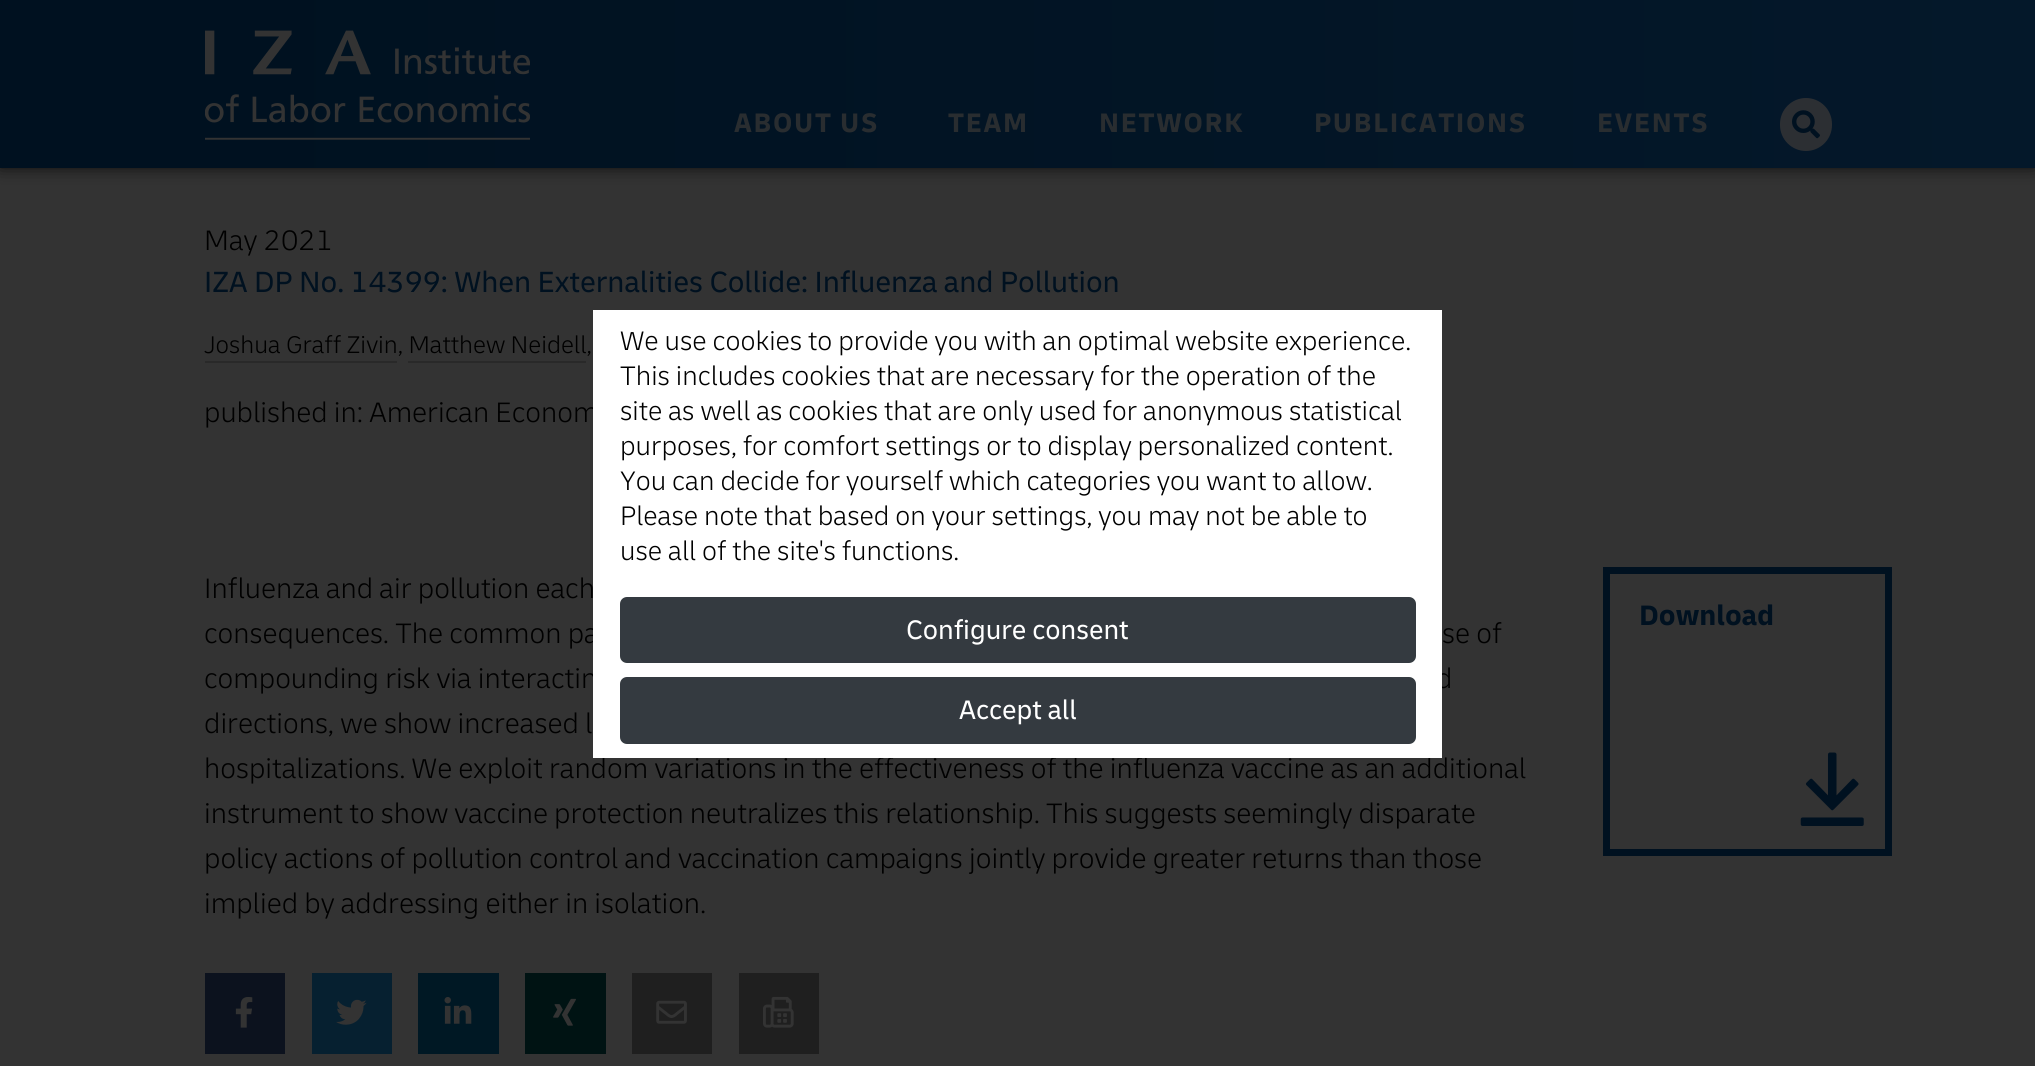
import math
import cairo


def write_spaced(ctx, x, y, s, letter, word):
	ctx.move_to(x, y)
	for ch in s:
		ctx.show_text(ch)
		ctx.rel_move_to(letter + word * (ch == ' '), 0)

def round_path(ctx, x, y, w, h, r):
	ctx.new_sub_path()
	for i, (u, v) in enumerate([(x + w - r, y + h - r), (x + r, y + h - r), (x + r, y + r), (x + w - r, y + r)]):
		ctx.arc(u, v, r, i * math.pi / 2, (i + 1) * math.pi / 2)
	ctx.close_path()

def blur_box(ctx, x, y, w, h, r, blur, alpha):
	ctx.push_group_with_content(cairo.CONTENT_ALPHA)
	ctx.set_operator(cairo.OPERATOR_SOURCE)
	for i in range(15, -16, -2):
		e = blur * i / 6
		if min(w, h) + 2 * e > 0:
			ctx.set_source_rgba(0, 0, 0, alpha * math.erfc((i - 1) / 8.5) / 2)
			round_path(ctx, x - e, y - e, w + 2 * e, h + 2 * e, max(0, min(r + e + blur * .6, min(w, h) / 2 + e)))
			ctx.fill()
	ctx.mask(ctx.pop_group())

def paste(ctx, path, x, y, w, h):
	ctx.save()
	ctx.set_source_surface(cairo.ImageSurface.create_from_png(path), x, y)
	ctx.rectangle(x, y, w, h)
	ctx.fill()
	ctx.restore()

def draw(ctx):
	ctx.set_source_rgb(0.2, 0.2, 0.2)
	ctx.paint()
	ctx.set_source_rgb(0, 0, 0)
	blur_box(ctx, 0, -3, 2035, 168, 0, 9, 1)
	gradient = cairo.LinearGradient(0, 84, 2035, 84)
	gradient.add_color_stop_rgba(0.1, 0, 0.067, 0.125, 1)
	gradient.add_color_stop_rgba(1, 0.016, 0.094, 0.165, 1)
	ctx.set_source(gradient)
	ctx.rectangle(0, 0, 2035, 168)
	ctx.fill()
	paste(ctx, 'media/1.png', 205, 30, 325, 110)
	ctx.select_font_face('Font', cairo.FONT_SLANT_NORMAL, cairo.FONT_WEIGHT_BOLD)
	ctx.set_font_size(28)
	ctx.set_source_rgb(0.161, 0.176, 0.188)
	for x, y, s in [
		(734, 132, 'ABOUT US'),
		(948, 132, 'TEAM'),
		(1099, 132, 'NETWORK'),
		(1314, 132, 'PUBLICATIONS'),
		(1597, 132, 'EVENTS'),
	]:
		write_spaced(ctx, x, y, s, 1.7, 0)
	ctx.set_source_rgb(0.173, 0.184, 0.2)
	round_path(ctx, 1780, 98, 52, 53, 26)
	ctx.fill()
	paste(ctx, 'media/2.png', 1792, 110, 28, 29)
	ctx.select_font_face('Font Light')
	ctx.set_font_size(29.4)
	ctx.set_source_rgb(0, 0, 0)
	ctx.move_to(204, 250)
	ctx.show_text('May 2021')
	ctx.select_font_face('Font')
	ctx.set_font_size(30.6)
	ctx.set_source_rgb(0, 0.067, 0.125)
	ctx.move_to(204, 292)
	ctx.show_text('IZA DP No. 14399: When Externalities Collide: Influenza and Pollution')
	ctx.select_font_face('Font Light')
	ctx.set_font_size(25.25)
	ctx.set_source_rgb(0, 0, 0)
	ctx.move_to(204, 353)
	ctx.show_text('Joshua Graff Zivin, Matthew Neidell,')
	ctx.set_source_rgb(0.161, 0.161, 0.161)
	ctx.rectangle(205, 361, 192, 2)
	ctx.fill()
	ctx.rectangle(408, 361, 178, 2)
	ctx.fill()
	ctx.set_font_size(29.4)
	ctx.set_source_rgb(0, 0, 0)
	for x, y, s in [
		(204, 422, 'published in: American Econom'),
		(204, 598, 'Influenza and air pollution each'),
		(204, 643, 'consequences. The common pa'),
		(1442, 643, 'se of'),
		(204, 688, 'compounding risk via interactin'),
		(1436, 688, 'd'),
	]:
		ctx.move_to(x, y)
		ctx.show_text(s)
	write_spaced(ctx, 204, 733, 'directions, we show increased l', 0, -0.1)
	ctx.move_to(204, 778)
	ctx.show_text('hospitalizations. We exploit random variations in the effectiveness of the influenza vaccine as an additional')
	write_spaced(ctx, 204, 823, 'instrument to show vaccine protection neutralizes this relationship. This suggests seemingly disparate', 0, -0.1)
	ctx.move_to(204, 868)
	ctx.show_text('policy actions of pollution control and vaccination campaigns jointly provide greater returns than those')
	ctx.move_to(204, 913)
	ctx.show_text('implied by addressing either in isolation.')
	ctx.rectangle(1606.5, 570.5, 282, 282)
	ctx.set_source_rgb(0, 0.067, 0.125)
	ctx.set_line_width(7)
	ctx.stroke()
	ctx.select_font_face('Font', cairo.FONT_SLANT_NORMAL, cairo.FONT_WEIGHT_BOLD)
	ctx.move_to(1639, 625)
	ctx.show_text('Download')
	paste(ctx, 'media/3.png', 1800, 752, 64, 74)
	ctx.set_source_rgb(0.047, 0.071, 0.118)
	ctx.rectangle(205, 973, 80, 81)
	ctx.fill()
	paste(ctx, 'media/4.png', 235, 997, 18, 31)
	ctx.set_source_rgb(0.024, 0.125, 0.188)
	ctx.rectangle(312, 973, 80, 81)
	ctx.fill()
	paste(ctx, 'media/5.png', 336, 999, 31, 26)
	ctx.set_source_rgb(0, 0.094, 0.141)
	ctx.rectangle(418, 973, 81, 81)
	ctx.fill()
	paste(ctx, 'media/6.png', 444, 997, 28, 27)
	ctx.set_source_rgb(0, 0.078, 0.078)
	ctx.rectangle(525, 973, 81, 81)
	ctx.fill()
	paste(ctx, 'media/7.png', 553, 998, 23, 28)
	ctx.set_source_rgb(0.122, 0.122, 0.122)
	ctx.rectangle(632, 973, 80, 81)
	ctx.fill()
	paste(ctx, 'media/8.png', 656, 1000, 31, 24)
	ctx.rectangle(739, 973, 80, 81)
	ctx.fill()
	paste(ctx, 'media/9.png', 763, 996, 31, 32)
	ctx.set_source_rgb(1, 1, 1)
	ctx.rectangle(593, 310, 849, 448)
	ctx.fill()
	ctx.select_font_face('Font Light')
	ctx.set_font_size(28)
	ctx.set_source_rgb(0, 0, 0)
	for x, y, s in [
		(620, 350, 'We use cookies to provide you with an optimal website experience.'),
		(620, 385, 'This includes cookies that are necessary for the operation of the'),
		(620, 420, 'site as well as cookies that are only used for anonymous statistical'),
		(620, 455, 'purposes, for comfort settings or to display personalized content.'),
		(620, 490, 'You can decide for yourself which categories you want to allow.'),
		(620, 525, 'Please note that based on your settings, you may not be able to'),
		(620, 560, 'use all of the site\'s functions.'),
	]:
		ctx.move_to(x, y)
		ctx.show_text(s)
	ctx.set_source_rgb(0.204, 0.227, 0.251)
	round_path(ctx, 621, 598, 794, 64, 6)
	ctx.fill_preserve()
	ctx.set_line_width(2)
	ctx.stroke()
	ctx.select_font_face('Font')
	ctx.set_source_rgb(1, 1, 1)
	ctx.move_to(906, 639)
	ctx.show_text('Configure consent')
	ctx.set_source_rgb(0.204, 0.227, 0.251)
	round_path(ctx, 621, 678, 794, 65, 6)
	ctx.fill_preserve()
	ctx.stroke()
	ctx.set_source_rgb(1, 1, 1)
	ctx.move_to(959, 719)
	ctx.show_text('Accept all')


surface = cairo.ImageSurface(cairo.FORMAT_RGB24, 2035, 1066)
ctx = cairo.Context(surface)
options = cairo.FontOptions()
options.set_hint_metrics(cairo.HINT_METRICS_OFF)
options.set_hint_style(cairo.HINT_STYLE_NONE)
ctx.set_font_options(options)
ctx.set_miter_limit(4)
draw(ctx)
surface.write_to_png('image.png')
